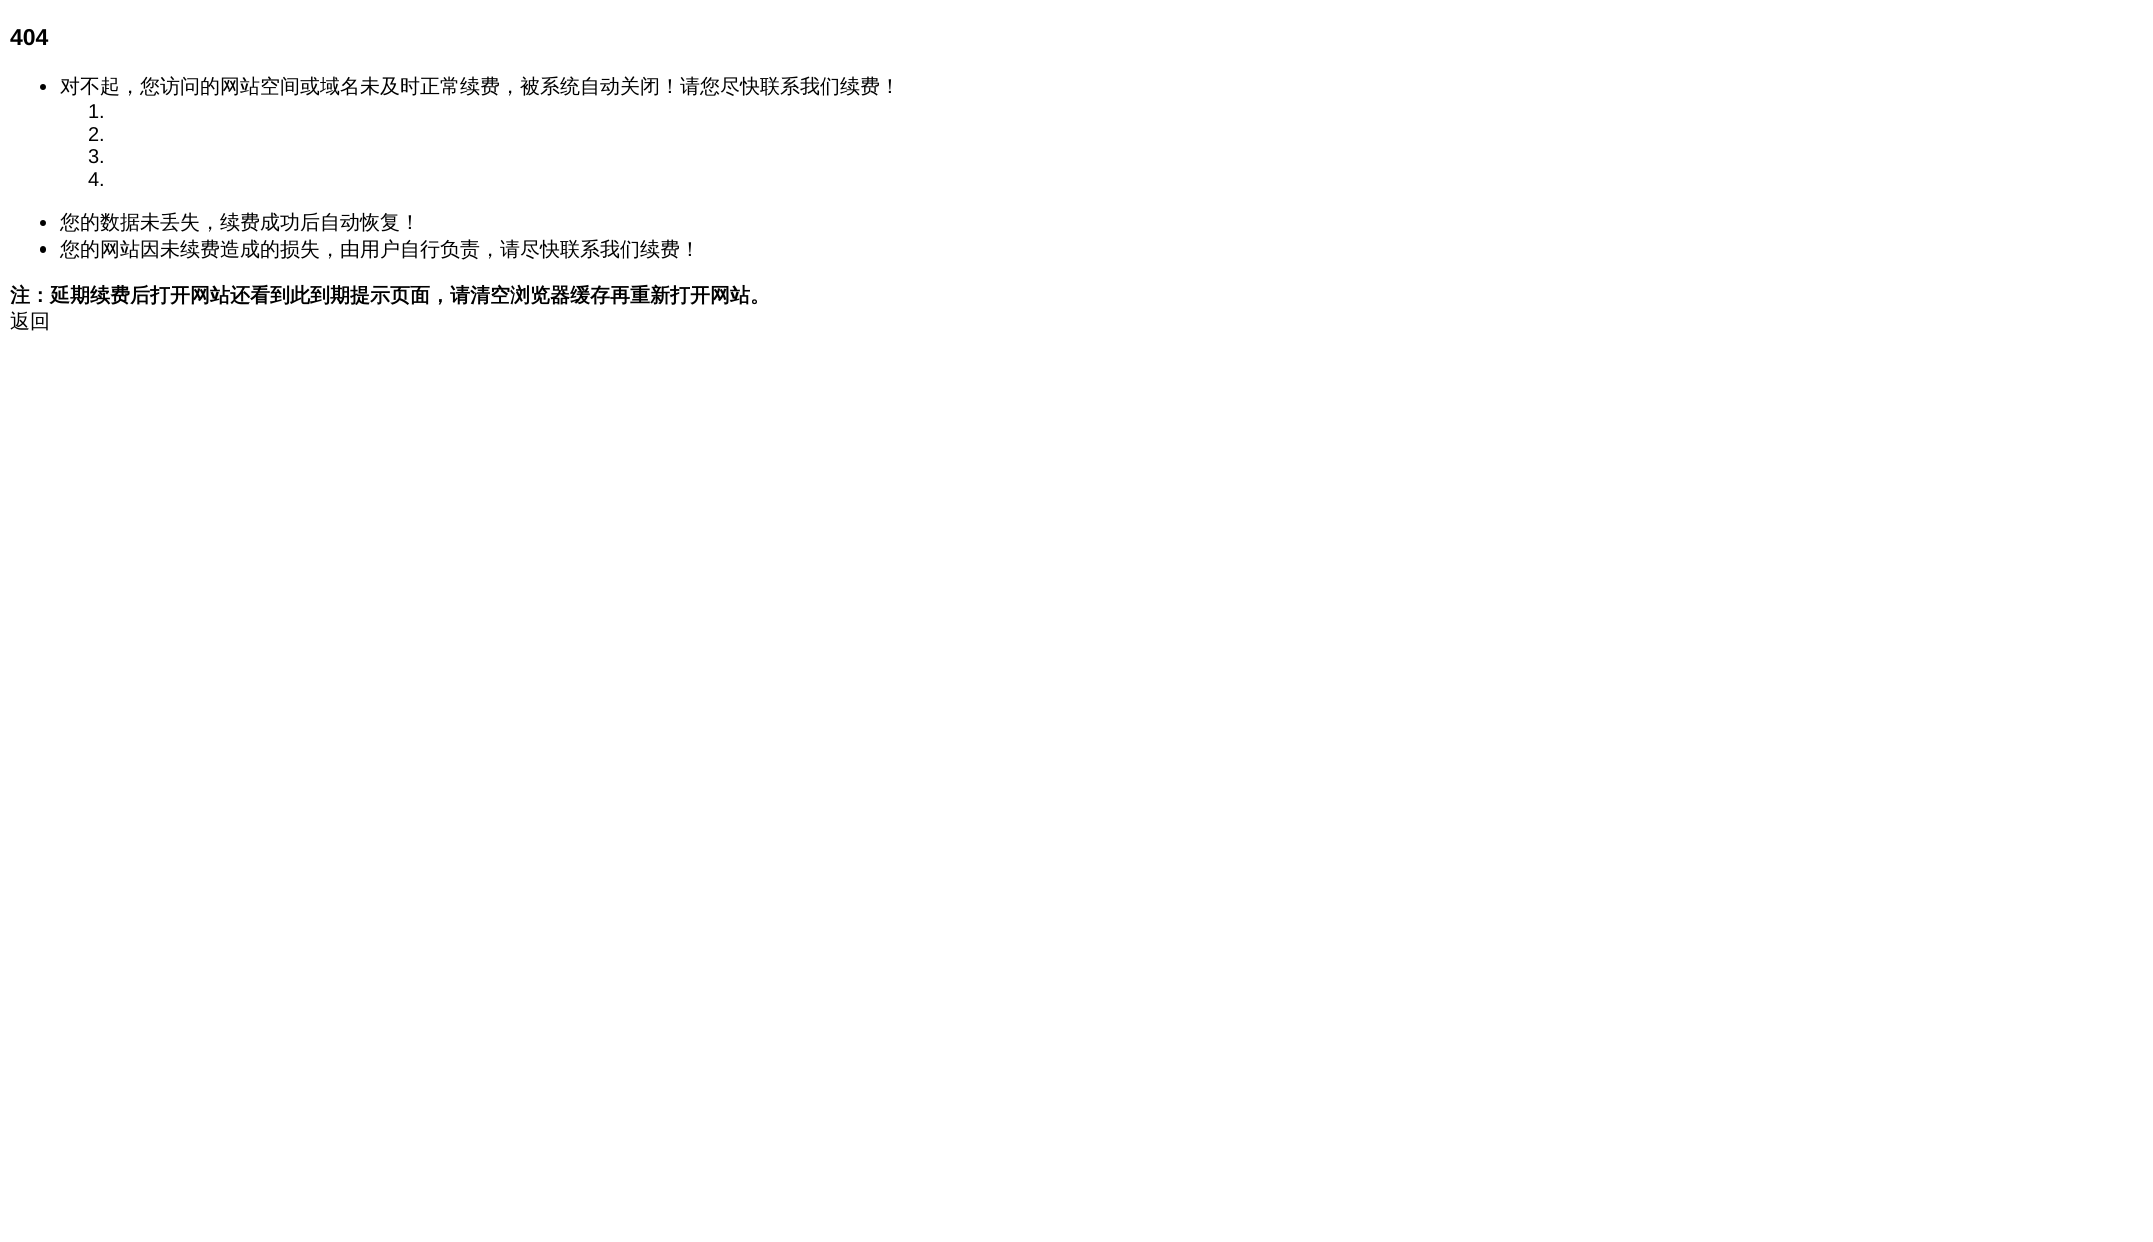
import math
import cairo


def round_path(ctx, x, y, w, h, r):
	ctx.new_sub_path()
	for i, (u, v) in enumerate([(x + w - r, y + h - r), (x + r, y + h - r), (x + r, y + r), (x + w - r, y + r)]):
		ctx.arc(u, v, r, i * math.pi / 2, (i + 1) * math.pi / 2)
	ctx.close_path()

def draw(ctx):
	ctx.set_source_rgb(1, 1, 1)
	ctx.paint()
	ctx.select_font_face('Liberation Sans', cairo.FONT_SLANT_NORMAL, cairo.FONT_WEIGHT_BOLD)
	ctx.set_font_size(23)
	ctx.set_source_rgb(0, 0, 0)
	ctx.move_to(10, 45)
	ctx.show_text('404')
	ctx.new_path()
	ctx.arc(43, 87, 3, 0, 2 * math.pi)
	ctx.fill()
	ctx.select_font_face('WenQuanYi Zen Hei Medium')
	ctx.set_font_size(20)
	ctx.move_to(60, 93)
	ctx.show_text('对不起，您访问的网站空间或域名未及时正常续费，被系统自动关闭！请您尽快联系我们续费！')
	ctx.select_font_face('Liberation Sans')
	for x, y, s in [
		(88, 118, '1.'),
		(88, 141, '2.'),
		(88, 163, '3.'),
		(88, 186, '4.'),
	]:
		ctx.move_to(x, y)
		ctx.show_text(s)
	ctx.new_path()
	ctx.arc(43, 223, 3, 0, 2 * math.pi)
	ctx.fill()
	ctx.select_font_face('WenQuanYi Zen Hei Medium')
	ctx.move_to(60, 229)
	ctx.show_text('您的数据未丢失，续费成功后自动恢复！')
	round_path(ctx, 40, 246, 6, 7, 3)
	ctx.fill()
	ctx.move_to(60, 256)
	ctx.show_text('您的网站因未续费造成的损失，由用户自行负责，请尽快联系我们续费！')
	ctx.select_font_face('WenQuanYi Zen Hei', cairo.FONT_SLANT_NORMAL, cairo.FONT_WEIGHT_BOLD)
	ctx.move_to(10, 302)
	ctx.show_text('注：延期续费后打开网站还看到此到期提示页面，请清空浏览器缓存再重新打开网站。')
	ctx.select_font_face('WenQuanYi Zen Hei Medium')
	ctx.move_to(10, 328)
	ctx.show_text('返回')


surface = cairo.ImageSurface(cairo.FORMAT_RGB24, 2153, 1242)
ctx = cairo.Context(surface)
options = cairo.FontOptions()
options.set_hint_metrics(cairo.HINT_METRICS_OFF)
options.set_hint_style(cairo.HINT_STYLE_NONE)
ctx.set_font_options(options)
ctx.set_miter_limit(4)
draw(ctx)
surface.write_to_png('image.png')
